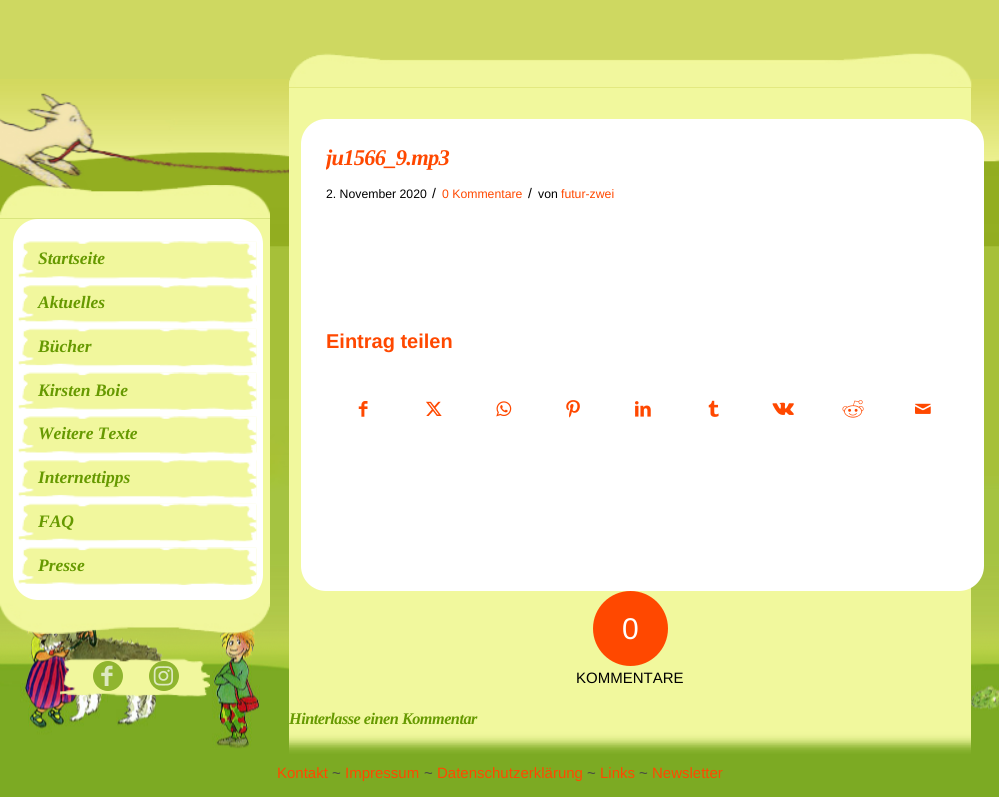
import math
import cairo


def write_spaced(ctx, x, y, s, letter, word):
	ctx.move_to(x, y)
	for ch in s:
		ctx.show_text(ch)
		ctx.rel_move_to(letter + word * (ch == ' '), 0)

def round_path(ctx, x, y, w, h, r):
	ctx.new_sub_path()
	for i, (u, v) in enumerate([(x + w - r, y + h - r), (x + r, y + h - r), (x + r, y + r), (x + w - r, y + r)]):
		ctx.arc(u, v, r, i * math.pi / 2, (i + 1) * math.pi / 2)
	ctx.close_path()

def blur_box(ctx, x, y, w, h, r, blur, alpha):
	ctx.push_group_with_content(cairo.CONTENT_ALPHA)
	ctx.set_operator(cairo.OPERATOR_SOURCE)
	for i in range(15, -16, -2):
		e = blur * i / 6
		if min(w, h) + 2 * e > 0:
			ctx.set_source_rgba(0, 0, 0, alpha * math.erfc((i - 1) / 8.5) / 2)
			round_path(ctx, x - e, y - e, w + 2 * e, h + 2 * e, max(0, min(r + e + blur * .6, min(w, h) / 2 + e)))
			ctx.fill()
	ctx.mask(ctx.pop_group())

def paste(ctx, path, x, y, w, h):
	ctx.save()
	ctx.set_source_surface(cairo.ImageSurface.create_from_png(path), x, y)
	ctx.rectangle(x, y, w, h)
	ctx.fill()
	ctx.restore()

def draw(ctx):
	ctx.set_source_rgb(0.808, 0.847, 0.38)
	ctx.paint()
	paste(ctx, 'media/1.png', 0, 79, 999, 587)
	paste(ctx, 'media/2.png', 0, 93, 289, 97)
	paste(ctx, 'media/3.png', 0, 185, 135, 34)
	paste(ctx, 'media/4.png', 135, 185, 135, 34)
	ctx.set_source_rgb(0.945, 0.969, 0.616)
	ctx.rectangle(0, 219, 270, 381)
	ctx.fill()
	ctx.set_source_rgb(1, 1, 1)
	round_path(ctx, 13, 219, 250, 381, 25)
	ctx.fill()
	paste(ctx, 'media/5.png', 18, 241, 239, 38)
	ctx.select_font_face('Liberation Serif', cairo.FONT_SLANT_ITALIC, cairo.FONT_WEIGHT_BOLD)
	ctx.set_font_size(17.5)
	ctx.set_source_rgb(0.4, 0.6, 0)
	ctx.move_to(38, 264)
	ctx.show_text('Startseite')
	paste(ctx, 'media/6.png', 160, 241, 97, 38)
	paste(ctx, 'media/7.png', 18, 285, 239, 38)
	ctx.move_to(38, 308)
	ctx.show_text('Aktuelles')
	paste(ctx, 'media/8.png', 160, 285, 97, 38)
	paste(ctx, 'media/9.png', 18, 328, 239, 39)
	ctx.move_to(38, 352)
	ctx.show_text('Bücher')
	paste(ctx, 'media/10.png', 160, 328, 97, 39)
	paste(ctx, 'media/11.png', 18, 372, 239, 38)
	ctx.move_to(38, 396)
	ctx.show_text('Kirsten Boie')
	paste(ctx, 'media/12.png', 160, 372, 97, 38)
	paste(ctx, 'media/5.png', 18, 416, 239, 38)
	ctx.move_to(38, 439)
	ctx.show_text('Weitere Texte')
	paste(ctx, 'media/6.png', 160, 416, 97, 38)
	paste(ctx, 'media/13.png', 18, 460, 239, 38)
	ctx.move_to(38, 483)
	ctx.show_text('Internettipps')
	paste(ctx, 'media/14.png', 160, 460, 97, 38)
	paste(ctx, 'media/9.png', 18, 503, 239, 39)
	ctx.move_to(38, 527)
	ctx.show_text('FAQ')
	paste(ctx, 'media/10.png', 160, 503, 97, 39)
	paste(ctx, 'media/11.png', 18, 547, 239, 38)
	ctx.move_to(38, 571)
	ctx.show_text('Presse')
	paste(ctx, 'media/12.png', 160, 547, 97, 38)
	paste(ctx, 'media/32.png', 0, 621, 999, 133)
	paste(ctx, 'media/15.png', 0, 600, 135, 34)
	paste(ctx, 'media/16.png', 135, 600, 135, 34)
	paste(ctx, 'media/17.png', 60, 658, 75, 39)
	ctx.set_source_rgb(0.565, 0.71, 0.184)
	ctx.arc(108, 676, 15, 0, 2 * math.pi)
	ctx.fill()
	paste(ctx, 'media/18.png', 101, 665, 12, 21)
	paste(ctx, 'media/19.png', 135, 658, 75, 39)
	ctx.set_source_rgba(0.4, 0.6, 0, 0.7)
	ctx.arc(164, 676, 15, 0, 2 * math.pi)
	ctx.fill()
	paste(ctx, 'media/20.png', 153, 666, 20, 20)
	ctx.set_source_rgb(0.945, 0.969, 0.616)
	ctx.rectangle(289, 88, 682, 666)
	ctx.fill()
	paste(ctx, 'media/21.png', 289, 53, 341, 35)
	paste(ctx, 'media/22.png', 630, 53, 342, 35)
	ctx.set_source_rgb(1, 1, 1)
	round_path(ctx, 301, 119, 683, 472, 25)
	ctx.fill()
	ctx.save()
	ctx.rectangle(326, 144, 633, 422)
	ctx.clip()
	ctx.set_font_size(22.5)
	ctx.set_source_rgb(1, 0.282, 0)
	write_spaced(ctx, 326, 165, 'ju1566_9.mp3', -0.75, 0)
	ctx.restore()
	ctx.select_font_face('Liberation Sans')
	ctx.set_font_size(12.25)
	ctx.set_source_rgb(0, 0, 0)
	ctx.move_to(326, 198)
	ctx.show_text('2. November 2020')
	ctx.set_font_size(14)
	ctx.move_to(432, 198)
	ctx.show_text('/')
	ctx.set_font_size(12.25)
	ctx.set_source_rgb(1, 0.282, 0)
	ctx.move_to(442, 198)
	ctx.show_text('0 Kommentare')
	ctx.set_font_size(14)
	ctx.set_source_rgb(0, 0, 0)
	ctx.move_to(528, 198)
	ctx.show_text('/')
	ctx.set_font_size(12.25)
	ctx.move_to(538, 198)
	ctx.show_text('von')
	ctx.set_source_rgb(1, 0.282, 0)
	ctx.move_to(561, 198)
	ctx.show_text('futur-zwei')
	ctx.select_font_face('Liberation Sans', cairo.FONT_SLANT_NORMAL, cairo.FONT_WEIGHT_BOLD)
	ctx.set_font_size(20)
	ctx.move_to(326, 348)
	ctx.show_text('Eintrag teilen')
	paste(ctx, 'media/23.png', 358, 401, 10, 16)
	paste(ctx, 'media/24.png', 426, 401, 16, 15)
	paste(ctx, 'media/25.png', 496, 401, 16, 16)
	paste(ctx, 'media/26.png', 566, 400, 14, 18)
	paste(ctx, 'media/27.png', 635, 401, 16, 16)
	paste(ctx, 'media/28.png', 708, 400, 11, 17)
	paste(ctx, 'media/29.png', 772, 402, 22, 13)
	paste(ctx, 'media/30.png', 842, 400, 22, 18)
	paste(ctx, 'media/31.png', 915, 403, 16, 11)
	ctx.arc(630.5, 628.5, 37.5, 0, 2 * math.pi)
	ctx.fill()
	ctx.select_font_face('Liberation Sans')
	ctx.set_font_size(30)
	ctx.set_source_rgb(1, 1, 1)
	ctx.move_to(622, 639)
	ctx.show_text('0')
	ctx.set_font_size(15)
	ctx.set_source_rgb(0, 0, 0)
	ctx.move_to(576, 683)
	ctx.show_text('KOMMENTARE')
	ctx.select_font_face('Liberation Serif', cairo.FONT_SLANT_ITALIC, cairo.FONT_WEIGHT_BOLD)
	ctx.set_font_size(16.25)
	ctx.set_source_rgb(0.4, 0.6, 0)
	write_spaced(ctx, 289, 724, 'Hinterlasse einen Kommentar', -0.5, 0)
	ctx.set_source_rgb(0.486, 0.667, 0.137)
	blur_box(ctx, 0, 744, 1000, 44, 0, 5, 1)
	ctx.set_source_rgb(0.486, 0.667, 0.137)
	ctx.rectangle(0, 754, 999, 43)
	ctx.fill()
	ctx.select_font_face('Liberation Sans')
	ctx.set_font_size(15)
	ctx.set_source_rgb(1, 0.282, 0)
	ctx.move_to(277, 778)
	ctx.show_text('Kontakt')
	ctx.set_source_rgb(0.267, 0.267, 0.267)
	ctx.move_to(332, 778)
	ctx.show_text('~')
	ctx.set_source_rgb(1, 0.282, 0)
	ctx.move_to(345, 778)
	ctx.show_text('Impressum')
	ctx.set_source_rgb(0.267, 0.267, 0.267)
	ctx.move_to(424, 778)
	ctx.show_text('~')
	ctx.set_source_rgb(1, 0.282, 0)
	ctx.move_to(437, 778)
	ctx.show_text('Datenschutzerklärung')
	ctx.set_source_rgb(0.267, 0.267, 0.267)
	ctx.move_to(587, 778)
	ctx.show_text('~')
	ctx.set_source_rgb(1, 0.282, 0)
	ctx.move_to(600, 778)
	ctx.show_text('Links')
	ctx.set_source_rgb(0.267, 0.267, 0.267)
	ctx.move_to(639, 778)
	ctx.show_text('~')
	ctx.set_source_rgb(1, 0.282, 0)
	ctx.move_to(652, 778)
	ctx.show_text('Newsletter')


surface = cairo.ImageSurface(cairo.FORMAT_RGB24, 999, 797)
ctx = cairo.Context(surface)
options = cairo.FontOptions()
options.set_hint_metrics(cairo.HINT_METRICS_OFF)
options.set_hint_style(cairo.HINT_STYLE_NONE)
ctx.set_font_options(options)
ctx.set_miter_limit(4)
draw(ctx)
surface.write_to_png('image.png')
